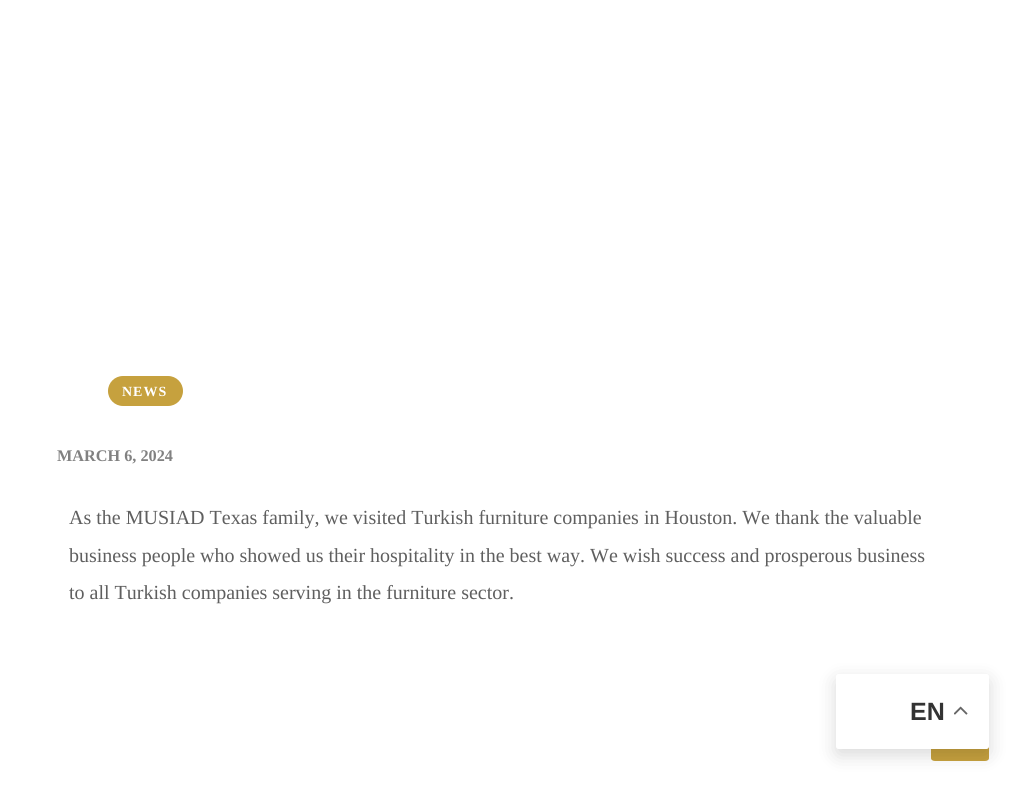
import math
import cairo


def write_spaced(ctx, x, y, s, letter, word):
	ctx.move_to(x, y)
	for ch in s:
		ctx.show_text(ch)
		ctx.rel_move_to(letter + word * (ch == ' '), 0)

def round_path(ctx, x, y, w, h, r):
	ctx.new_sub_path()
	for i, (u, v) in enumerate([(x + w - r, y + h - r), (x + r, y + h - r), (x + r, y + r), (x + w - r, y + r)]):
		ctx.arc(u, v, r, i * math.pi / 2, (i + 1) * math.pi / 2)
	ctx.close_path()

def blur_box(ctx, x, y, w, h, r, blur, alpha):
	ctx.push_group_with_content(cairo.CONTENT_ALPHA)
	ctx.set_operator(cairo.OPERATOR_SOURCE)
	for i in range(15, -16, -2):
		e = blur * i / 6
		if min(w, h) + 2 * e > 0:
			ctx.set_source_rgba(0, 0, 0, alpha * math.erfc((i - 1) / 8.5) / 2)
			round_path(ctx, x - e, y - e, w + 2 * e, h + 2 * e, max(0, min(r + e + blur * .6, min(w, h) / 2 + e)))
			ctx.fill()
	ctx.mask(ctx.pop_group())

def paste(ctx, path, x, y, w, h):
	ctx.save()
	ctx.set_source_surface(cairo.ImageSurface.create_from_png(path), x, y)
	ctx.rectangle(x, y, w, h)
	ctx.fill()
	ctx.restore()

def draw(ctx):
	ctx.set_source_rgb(1, 1, 1)
	ctx.paint()
	ctx.set_source_rgb(0.776, 0.631, 0.243)
	round_path(ctx, 108, 376, 75, 30, 15)
	ctx.fill()
	ctx.select_font_face('Liberation Serif', cairo.FONT_SLANT_NORMAL, cairo.FONT_WEIGHT_BOLD)
	ctx.set_font_size(14)
	ctx.set_source_rgb(1, 1, 1)
	write_spaced(ctx, 122, 396, 'NEWS', 1, 0)
	ctx.set_font_size(16.25)
	ctx.set_source_rgb(0.506, 0.506, 0.506)
	ctx.move_to(57, 461)
	ctx.show_text('MARCH 6, 2024')
	ctx.select_font_face('Liberation Serif')
	ctx.set_font_size(20)
	ctx.set_source_rgb(0.373, 0.373, 0.373)
	for x, y, s in [
		(69, 524, 'As the MUSIAD Texas family, we visited Turkish furniture companies in Houston. We thank the valuable'),
		(69, 562, 'business people who showed us their hospitality in the best way. We wish success and prosperous business'),
		(69, 599, 'to all Turkish companies serving in the furniture sector.'),
	]:
		ctx.move_to(x, y)
		ctx.show_text(s)
	ctx.set_source_rgb(0.776, 0.631, 0.243)
	ctx.new_path()
	ctx.move_to(989, 708)
	ctx.line_to(989, 758)
	ctx.curve_to(989, 760, 987, 761, 985, 761)
	ctx.line_to(935, 761)
	ctx.curve_to(933, 761, 931, 760, 931, 758)
	ctx.line_to(931, 708)
	ctx.curve_to(931, 705, 933, 704, 935, 704)
	ctx.line_to(985, 704)
	ctx.curve_to(987, 704, 989, 705, 989, 708)
	ctx.close_path()
	ctx.fill()
	ctx.set_source_rgb(0, 0, 0)
	blur_box(ctx, 836, 680, 153, 75, 2.5, 9.5, 0.15)
	ctx.set_source_rgb(1, 1, 1)
	round_path(ctx, 836, 674, 153, 75, 2.5)
	ctx.fill()
	ctx.select_font_face('Liberation Sans', cairo.FONT_SLANT_NORMAL, cairo.FONT_WEIGHT_BOLD)
	ctx.set_font_size(25)
	ctx.set_source_rgb(0.2, 0.2, 0.2)
	ctx.move_to(910, 720)
	ctx.show_text('EN')
	paste(ctx, 'media/1.png', 954, 706, 14, 9)


surface = cairo.ImageSurface(cairo.FORMAT_RGB24, 1013, 786)
ctx = cairo.Context(surface)
options = cairo.FontOptions()
options.set_hint_metrics(cairo.HINT_METRICS_OFF)
options.set_hint_style(cairo.HINT_STYLE_NONE)
ctx.set_font_options(options)
ctx.set_miter_limit(4)
draw(ctx)
surface.write_to_png('image.png')
